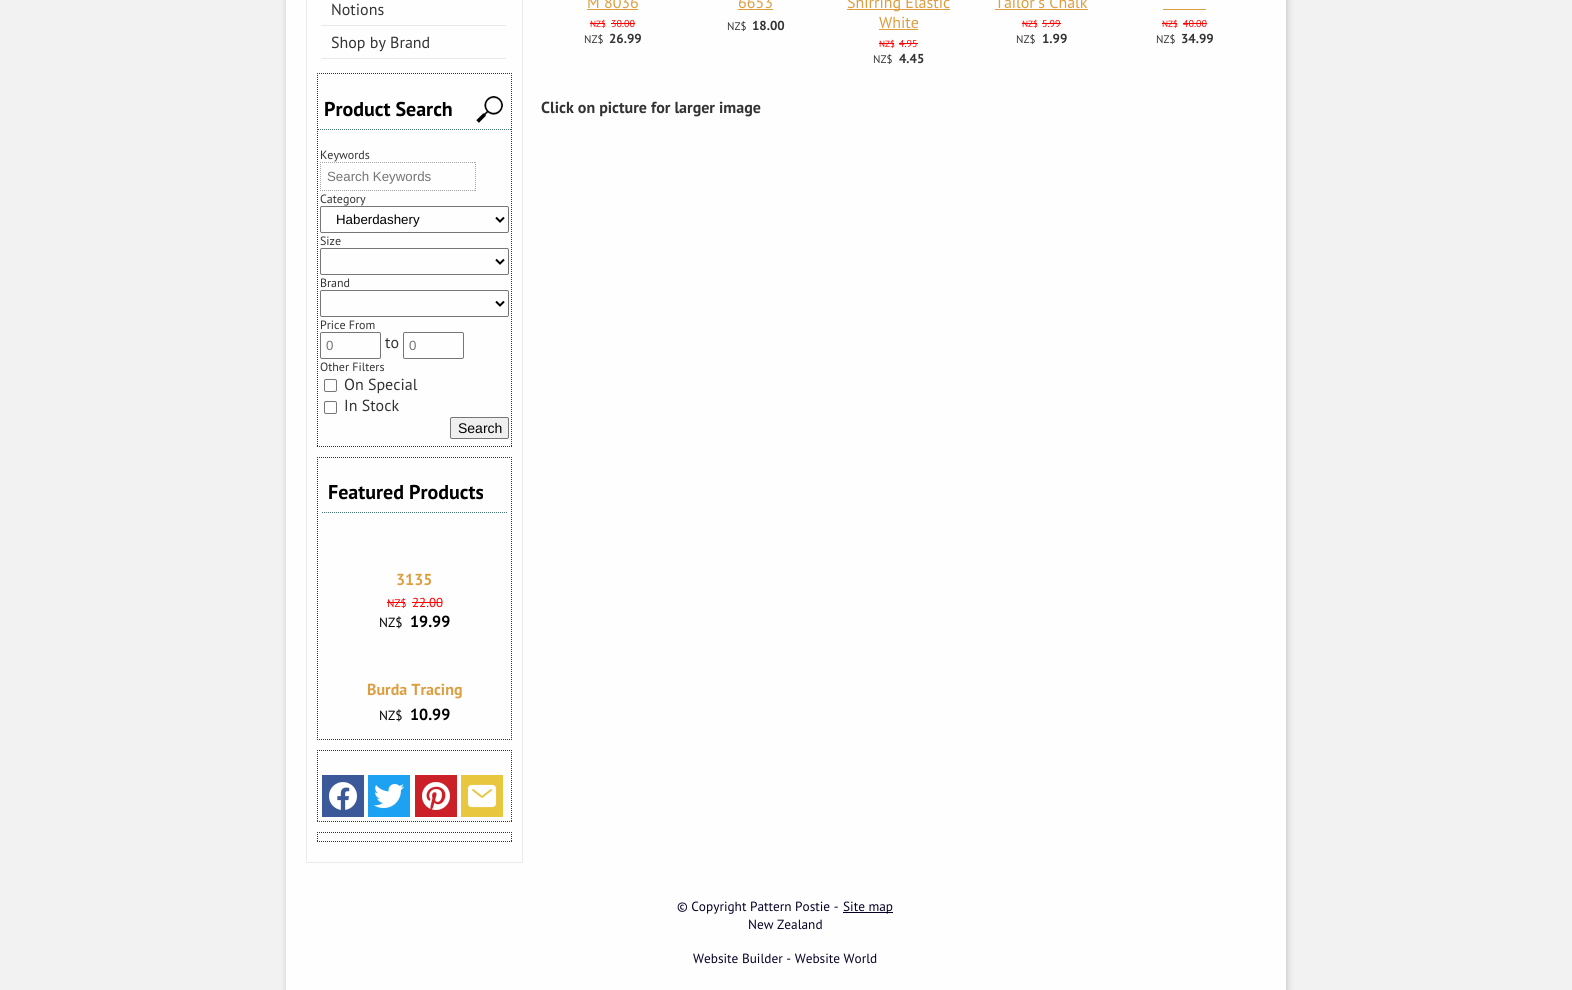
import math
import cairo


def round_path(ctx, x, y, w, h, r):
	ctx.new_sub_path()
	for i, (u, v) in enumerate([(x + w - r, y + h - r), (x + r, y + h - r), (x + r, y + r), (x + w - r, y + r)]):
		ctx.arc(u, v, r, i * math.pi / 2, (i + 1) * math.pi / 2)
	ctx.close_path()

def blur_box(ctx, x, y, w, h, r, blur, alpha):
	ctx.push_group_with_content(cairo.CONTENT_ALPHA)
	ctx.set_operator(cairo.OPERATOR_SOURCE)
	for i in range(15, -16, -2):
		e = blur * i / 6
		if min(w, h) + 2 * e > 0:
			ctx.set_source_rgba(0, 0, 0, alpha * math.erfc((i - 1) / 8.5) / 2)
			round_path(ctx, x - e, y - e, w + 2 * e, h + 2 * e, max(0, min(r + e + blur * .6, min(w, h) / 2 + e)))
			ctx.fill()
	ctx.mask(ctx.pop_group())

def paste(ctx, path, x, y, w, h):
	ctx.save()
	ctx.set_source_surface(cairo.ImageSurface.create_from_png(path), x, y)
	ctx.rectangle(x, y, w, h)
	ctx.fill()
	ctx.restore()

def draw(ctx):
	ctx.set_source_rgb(0.949, 0.949, 0.949)
	ctx.paint()
	ctx.set_source_rgb(0, 0, 0)
	blur_box(ctx, 287, -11, 1000, 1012, 0, 3.5, 0.2)
	ctx.set_source_rgb(0.996, 0.996, 0.996)
	ctx.rectangle(286, 0, 1000, 990)
	ctx.fill()
	ctx.rectangle(306.5, -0.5, 216, 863)
	ctx.set_source_rgb(0.922, 0.922, 0.922)
	ctx.set_line_width(1)
	ctx.stroke()
	ctx.set_source_rgb(0.91, 0.91, 0.91)
	ctx.rectangle(321, 25, 185, 1)
	ctx.fill()
	ctx.select_font_face('PT Sans')
	ctx.set_font_size(16)
	ctx.set_source_rgb(0.2, 0.2, 0.2)
	ctx.move_to(331, 15)
	ctx.show_text('Notions')
	ctx.set_source_rgb(0.91, 0.91, 0.91)
	ctx.rectangle(321, 58, 185, 1)
	ctx.fill()
	ctx.set_source_rgb(0.2, 0.2, 0.2)
	ctx.move_to(331, 48)
	ctx.show_text('Shop by Brand')
	ctx.new_path()
	ctx.move_to(317, 73.5)
	ctx.line_to(512, 73.5)
	ctx.set_dash([1, 1])
	ctx.stroke()
	ctx.new_path()
	ctx.move_to(511.5, 73)
	ctx.line_to(511.5, 447)
	ctx.stroke()
	ctx.new_path()
	ctx.move_to(317, 446.5)
	ctx.line_to(512, 446.5)
	ctx.stroke()
	ctx.new_path()
	ctx.move_to(317.5, 73)
	ctx.line_to(317.5, 447)
	ctx.stroke()
	paste(ctx, 'media/1.png', 476, 96, 27, 27)
	ctx.new_path()
	ctx.move_to(318, 129.5)
	ctx.line_to(511, 129.5)
	ctx.set_source_rgb(0.271, 0.467, 0.478)
	ctx.stroke()
	ctx.select_font_face('PT Sans', cairo.FONT_SLANT_NORMAL, cairo.FONT_WEIGHT_BOLD)
	ctx.set_font_size(20)
	ctx.set_source_rgb(0, 0, 0)
	ctx.move_to(324, 116)
	ctx.show_text('Product Search')
	ctx.select_font_face('PT Sans')
	ctx.set_font_size(12)
	ctx.set_source_rgb(0.2, 0.2, 0.2)
	ctx.move_to(320, 159)
	ctx.show_text('Keywords')
	ctx.new_path()
	ctx.move_to(320, 162.5)
	ctx.line_to(476, 162.5)
	ctx.set_source_rgb(0.647, 0.647, 0.647)
	ctx.stroke()
	ctx.new_path()
	ctx.move_to(475.5, 162)
	ctx.line_to(475.5, 191)
	ctx.stroke()
	ctx.new_path()
	ctx.move_to(320, 190.5)
	ctx.line_to(476, 190.5)
	ctx.stroke()
	ctx.new_path()
	ctx.move_to(320.5, 162)
	ctx.line_to(320.5, 191)
	ctx.stroke()
	ctx.select_font_face('Liberation Sans')
	ctx.set_font_size(13.3)
	ctx.set_source_rgb(0.459, 0.459, 0.459)
	ctx.move_to(327, 181)
	ctx.show_text('Search Keywords')
	ctx.select_font_face('PT Sans')
	ctx.set_font_size(12)
	ctx.set_source_rgb(0.2, 0.2, 0.2)
	ctx.move_to(320, 203)
	ctx.show_text('Category')
	round_path(ctx, 320.5, 206.5, 188, 26, 1.5)
	ctx.set_source_rgb(0.463, 0.463, 0.463)
	ctx.set_dash([])
	ctx.stroke()
	ctx.new_path()
	ctx.move_to(496, 217.5)
	ctx.line_to(500, 221.5)
	ctx.line_to(504, 217.5)
	ctx.set_source_rgb(0, 0, 0)
	ctx.set_line_width(2)
	ctx.stroke()
	ctx.select_font_face('Liberation Sans')
	ctx.set_font_size(13.3)
	ctx.move_to(336, 224)
	ctx.show_text('Haberdashery')
	ctx.select_font_face('PT Sans')
	ctx.set_font_size(12)
	ctx.set_source_rgb(0.2, 0.2, 0.2)
	ctx.move_to(320, 245)
	ctx.show_text('Size')
	round_path(ctx, 320.5, 248.5, 188, 26, 1.5)
	ctx.set_source_rgb(0.463, 0.463, 0.463)
	ctx.set_line_width(1)
	ctx.stroke()
	ctx.new_path()
	ctx.move_to(496, 259.5)
	ctx.line_to(500, 263.5)
	ctx.line_to(504, 259.5)
	ctx.set_source_rgb(0, 0, 0)
	ctx.set_line_width(2)
	ctx.stroke()
	ctx.set_source_rgb(0.2, 0.2, 0.2)
	ctx.move_to(320, 287)
	ctx.show_text('Brand')
	round_path(ctx, 320.5, 290.5, 188, 26, 1.5)
	ctx.set_source_rgb(0.463, 0.463, 0.463)
	ctx.set_line_width(1)
	ctx.stroke()
	ctx.new_path()
	ctx.move_to(496, 301.5)
	ctx.line_to(500, 305.5)
	ctx.line_to(504, 301.5)
	ctx.set_source_rgb(0, 0, 0)
	ctx.set_line_width(2)
	ctx.stroke()
	ctx.set_source_rgb(0.2, 0.2, 0.2)
	ctx.move_to(320, 329)
	ctx.show_text('Price From')
	round_path(ctx, 320.5, 332.5, 60, 26, 1.5)
	ctx.set_source_rgb(0.463, 0.463, 0.463)
	ctx.set_line_width(1)
	ctx.stroke()
	ctx.select_font_face('Liberation Sans')
	ctx.set_font_size(13.3)
	ctx.set_source_rgb(0.459, 0.459, 0.459)
	ctx.move_to(326, 350)
	ctx.show_text('0')
	ctx.select_font_face('PT Sans')
	ctx.set_font_size(16)
	ctx.set_source_rgb(0.2, 0.2, 0.2)
	ctx.move_to(385, 348)
	ctx.show_text('to')
	round_path(ctx, 403.5, 332.5, 60, 26, 1.5)
	ctx.set_source_rgb(0.463, 0.463, 0.463)
	ctx.stroke()
	ctx.select_font_face('Liberation Sans')
	ctx.set_font_size(13.3)
	ctx.set_source_rgb(0.459, 0.459, 0.459)
	ctx.move_to(409, 350)
	ctx.show_text('0')
	ctx.select_font_face('PT Sans')
	ctx.set_font_size(12)
	ctx.set_source_rgb(0.2, 0.2, 0.2)
	ctx.move_to(320, 371)
	ctx.show_text('Other Filters')
	round_path(ctx, 324.5, 379.5, 12, 12, 1.5)
	ctx.set_source_rgb(0.463, 0.463, 0.463)
	ctx.stroke()
	ctx.set_font_size(16)
	ctx.set_source_rgb(0.2, 0.2, 0.2)
	ctx.move_to(344, 390)
	ctx.show_text('On Special')
	round_path(ctx, 324.5, 401.5, 12, 12, 1.5)
	ctx.set_source_rgb(0.463, 0.463, 0.463)
	ctx.stroke()
	ctx.set_source_rgb(0.2, 0.2, 0.2)
	ctx.move_to(344, 411)
	ctx.show_text('In Stock')
	ctx.set_source_rgb(0.937, 0.937, 0.937)
	round_path(ctx, 450.5, 417.5, 58, 21, 1.5)
	ctx.fill_preserve()
	ctx.set_source_rgb(0.463, 0.463, 0.463)
	ctx.stroke()
	ctx.select_font_face('Liberation Sans')
	ctx.set_font_size(14)
	ctx.set_source_rgb(0, 0, 0)
	ctx.move_to(458, 433)
	ctx.show_text('Search')
	ctx.new_path()
	ctx.move_to(317, 457.5)
	ctx.line_to(512, 457.5)
	ctx.set_source_rgb(0.2, 0.2, 0.2)
	ctx.set_dash([1, 1])
	ctx.stroke()
	ctx.new_path()
	ctx.move_to(511.5, 457)
	ctx.line_to(511.5, 740)
	ctx.stroke()
	ctx.new_path()
	ctx.move_to(317, 739.5)
	ctx.line_to(512, 739.5)
	ctx.stroke()
	ctx.new_path()
	ctx.move_to(317.5, 457)
	ctx.line_to(317.5, 740)
	ctx.stroke()
	ctx.new_path()
	ctx.move_to(322, 512.5)
	ctx.line_to(507, 512.5)
	ctx.set_source_rgb(0.271, 0.467, 0.478)
	ctx.stroke()
	ctx.select_font_face('PT Sans', cairo.FONT_SLANT_NORMAL, cairo.FONT_WEIGHT_BOLD)
	ctx.set_font_size(20)
	ctx.set_source_rgb(0, 0, 0)
	ctx.move_to(328, 499)
	ctx.show_text('Featured Products')
	ctx.set_font_size(16)
	ctx.set_source_rgb(0.867, 0.62, 0.255)
	ctx.move_to(396, 585)
	ctx.show_text('3135')
	ctx.select_font_face('PT Sans')
	ctx.set_font_size(11)
	ctx.set_source_rgb(1, 0, 0)
	ctx.move_to(387, 607)
	ctx.show_text('NZ$')
	ctx.rectangle(387, 602, 18, 1)
	ctx.fill()
	ctx.set_font_size(13)
	ctx.move_to(412, 607)
	ctx.show_text('22.00')
	ctx.rectangle(412, 602, 30, 1)
	ctx.fill()
	ctx.set_font_size(13.3)
	ctx.set_source_rgb(0, 0, 0)
	ctx.move_to(379, 627)
	ctx.show_text('NZ$')
	ctx.select_font_face('PT Sans', cairo.FONT_SLANT_NORMAL, cairo.FONT_WEIGHT_BOLD)
	ctx.set_font_size(16)
	ctx.move_to(410, 627)
	ctx.show_text('19.99')
	ctx.set_source_rgb(0.867, 0.62, 0.255)
	ctx.move_to(367, 695)
	ctx.show_text('Burda Tracing')
	ctx.select_font_face('PT Sans')
	ctx.set_font_size(13.3)
	ctx.set_source_rgb(0, 0, 0)
	ctx.move_to(379, 720)
	ctx.show_text('NZ$')
	ctx.select_font_face('PT Sans', cairo.FONT_SLANT_NORMAL, cairo.FONT_WEIGHT_BOLD)
	ctx.set_font_size(16)
	ctx.move_to(410, 720)
	ctx.show_text('10.99')
	ctx.new_path()
	ctx.move_to(317, 750.5)
	ctx.line_to(512, 750.5)
	ctx.set_source_rgb(0.2, 0.2, 0.2)
	ctx.stroke()
	ctx.new_path()
	ctx.move_to(511.5, 750)
	ctx.line_to(511.5, 822)
	ctx.stroke()
	ctx.new_path()
	ctx.move_to(317, 821.5)
	ctx.line_to(512, 821.5)
	ctx.stroke()
	ctx.new_path()
	ctx.move_to(317.5, 750)
	ctx.line_to(317.5, 822)
	ctx.stroke()
	ctx.set_source_rgb(0.231, 0.349, 0.596)
	ctx.rectangle(322, 775, 42, 42)
	ctx.fill()
	paste(ctx, 'media/2.png', 329, 782, 28, 28)
	ctx.set_source_rgb(0.114, 0.631, 0.949)
	ctx.rectangle(368, 775, 42, 42)
	ctx.fill()
	paste(ctx, 'media/3.png', 374, 783, 30, 26)
	ctx.set_source_rgb(0.796, 0.125, 0.153)
	ctx.rectangle(415, 775, 42, 42)
	ctx.fill()
	paste(ctx, 'media/4.png', 422, 782, 28, 29)
	ctx.set_source_rgb(0.91, 0.776, 0.243)
	ctx.rectangle(461, 775, 42, 42)
	ctx.fill()
	paste(ctx, 'media/5.png', 467, 784, 30, 24)
	ctx.new_path()
	ctx.move_to(317, 832.5)
	ctx.line_to(512, 832.5)
	ctx.set_source_rgb(0.2, 0.2, 0.2)
	ctx.stroke()
	ctx.new_path()
	ctx.move_to(511.5, 832)
	ctx.line_to(511.5, 842)
	ctx.stroke()
	ctx.new_path()
	ctx.move_to(317, 841.5)
	ctx.line_to(512, 841.5)
	ctx.stroke()
	ctx.new_path()
	ctx.move_to(317.5, 832)
	ctx.line_to(317.5, 842)
	ctx.stroke()
	ctx.select_font_face('PT Sans')
	ctx.set_source_rgb(0.867, 0.62, 0.255)
	ctx.move_to(587, 8)
	ctx.show_text('M 8036')
	ctx.rectangle(587, 9, 51, 1)
	ctx.fill()
	ctx.set_font_size(9)
	ctx.set_source_rgb(1, 0, 0)
	ctx.move_to(590, 27)
	ctx.show_text('NZ$')
	ctx.rectangle(590, 23, 15, 1)
	ctx.fill()
	ctx.set_font_size(10)
	ctx.move_to(611, 27)
	ctx.show_text('30.00')
	ctx.rectangle(611, 23, 24, 1)
	ctx.fill()
	ctx.set_font_size(11)
	ctx.set_source_rgb(0.2, 0.2, 0.2)
	ctx.move_to(584, 43)
	ctx.show_text('NZ$')
	ctx.select_font_face('PT Sans', cairo.FONT_SLANT_NORMAL, cairo.FONT_WEIGHT_BOLD)
	ctx.set_font_size(13)
	ctx.move_to(609, 43)
	ctx.show_text('26.99')
	ctx.select_font_face('PT Sans')
	ctx.set_font_size(16)
	ctx.set_source_rgb(0.867, 0.62, 0.255)
	ctx.move_to(738, 8)
	ctx.show_text('6653')
	ctx.rectangle(738, 9, 35, 1)
	ctx.fill()
	ctx.set_font_size(11)
	ctx.set_source_rgb(0.2, 0.2, 0.2)
	ctx.move_to(727, 30)
	ctx.show_text('NZ$')
	ctx.select_font_face('PT Sans', cairo.FONT_SLANT_NORMAL, cairo.FONT_WEIGHT_BOLD)
	ctx.set_font_size(13)
	ctx.move_to(752, 30)
	ctx.show_text('18.00')
	ctx.set_source_rgb(0.867, 0.62, 0.255)
	ctx.rectangle(847, 9, 103, 1)
	ctx.fill()
	ctx.select_font_face('PT Sans')
	ctx.set_font_size(16)
	ctx.move_to(847, 8)
	ctx.show_text('Shirring Elastic')
	ctx.move_to(879, 28)
	ctx.show_text('White')
	ctx.rectangle(879, 29, 39, 1)
	ctx.fill()
	ctx.set_font_size(9)
	ctx.set_source_rgb(1, 0, 0)
	ctx.move_to(879, 47)
	ctx.show_text('NZ$')
	ctx.rectangle(879, 43, 15, 1)
	ctx.fill()
	ctx.set_font_size(10)
	ctx.move_to(899, 47)
	ctx.show_text('4.95')
	ctx.rectangle(899, 43, 19, 1)
	ctx.fill()
	ctx.set_font_size(11)
	ctx.set_source_rgb(0.2, 0.2, 0.2)
	ctx.move_to(873, 63)
	ctx.show_text('NZ$')
	ctx.select_font_face('PT Sans', cairo.FONT_SLANT_NORMAL, cairo.FONT_WEIGHT_BOLD)
	ctx.set_font_size(13)
	ctx.move_to(899, 63)
	ctx.show_text('4.45')
	ctx.select_font_face('PT Sans')
	ctx.set_font_size(16)
	ctx.set_source_rgb(0.867, 0.62, 0.255)
	ctx.move_to(995, 8)
	ctx.show_text('Tailor\'s Chalk')
	ctx.rectangle(995, 9, 93, 1)
	ctx.fill()
	ctx.set_font_size(9)
	ctx.set_source_rgb(1, 0, 0)
	ctx.move_to(1022, 27)
	ctx.show_text('NZ$')
	ctx.rectangle(1022, 23, 15, 1)
	ctx.fill()
	ctx.set_font_size(10)
	ctx.move_to(1042, 27)
	ctx.show_text('5.99')
	ctx.rectangle(1042, 23, 19, 1)
	ctx.fill()
	ctx.set_font_size(11)
	ctx.set_source_rgb(0.2, 0.2, 0.2)
	ctx.move_to(1016, 43)
	ctx.show_text('NZ$')
	ctx.select_font_face('PT Sans', cairo.FONT_SLANT_NORMAL, cairo.FONT_WEIGHT_BOLD)
	ctx.set_font_size(13)
	ctx.move_to(1042, 43)
	ctx.show_text('1.99')
	ctx.set_source_rgb(0.867, 0.62, 0.255)
	ctx.rectangle(1163, 9, 43, 1)
	ctx.fill()
	ctx.select_font_face('PT Sans')
	ctx.set_font_size(9)
	ctx.set_source_rgb(1, 0, 0)
	ctx.move_to(1162, 27)
	ctx.show_text('NZ$')
	ctx.rectangle(1162, 23, 15, 1)
	ctx.fill()
	ctx.set_font_size(10)
	ctx.move_to(1183, 27)
	ctx.show_text('40.00')
	ctx.rectangle(1183, 23, 24, 1)
	ctx.fill()
	ctx.set_font_size(11)
	ctx.set_source_rgb(0.2, 0.2, 0.2)
	ctx.move_to(1156, 43)
	ctx.show_text('NZ$')
	ctx.select_font_face('PT Sans', cairo.FONT_SLANT_NORMAL, cairo.FONT_WEIGHT_BOLD)
	ctx.set_font_size(13)
	ctx.move_to(1181, 43)
	ctx.show_text('34.99')
	ctx.set_font_size(16)
	ctx.move_to(541, 113)
	ctx.show_text('Click on picture for larger image')
	ctx.select_font_face('PT Sans')
	ctx.set_font_size(13.3)
	ctx.set_source_rgb(0.027, 0, 0.149)
	ctx.move_to(677, 911)
	ctx.show_text('© Copyright Pattern Postie -')
	ctx.rectangle(843, 912, 50, 1)
	ctx.fill()
	for x, y, s in [
		(843, 911, 'Site map'),
		(748, 929, 'New Zealand'),
		(693, 963, 'Website Builder - Website World'),
	]:
		ctx.move_to(x, y)
		ctx.show_text(s)


surface = cairo.ImageSurface(cairo.FORMAT_RGB24, 1572, 990)
ctx = cairo.Context(surface)
options = cairo.FontOptions()
options.set_hint_metrics(cairo.HINT_METRICS_OFF)
options.set_hint_style(cairo.HINT_STYLE_NONE)
ctx.set_font_options(options)
ctx.set_miter_limit(4)
draw(ctx)
surface.write_to_png('image.png')
